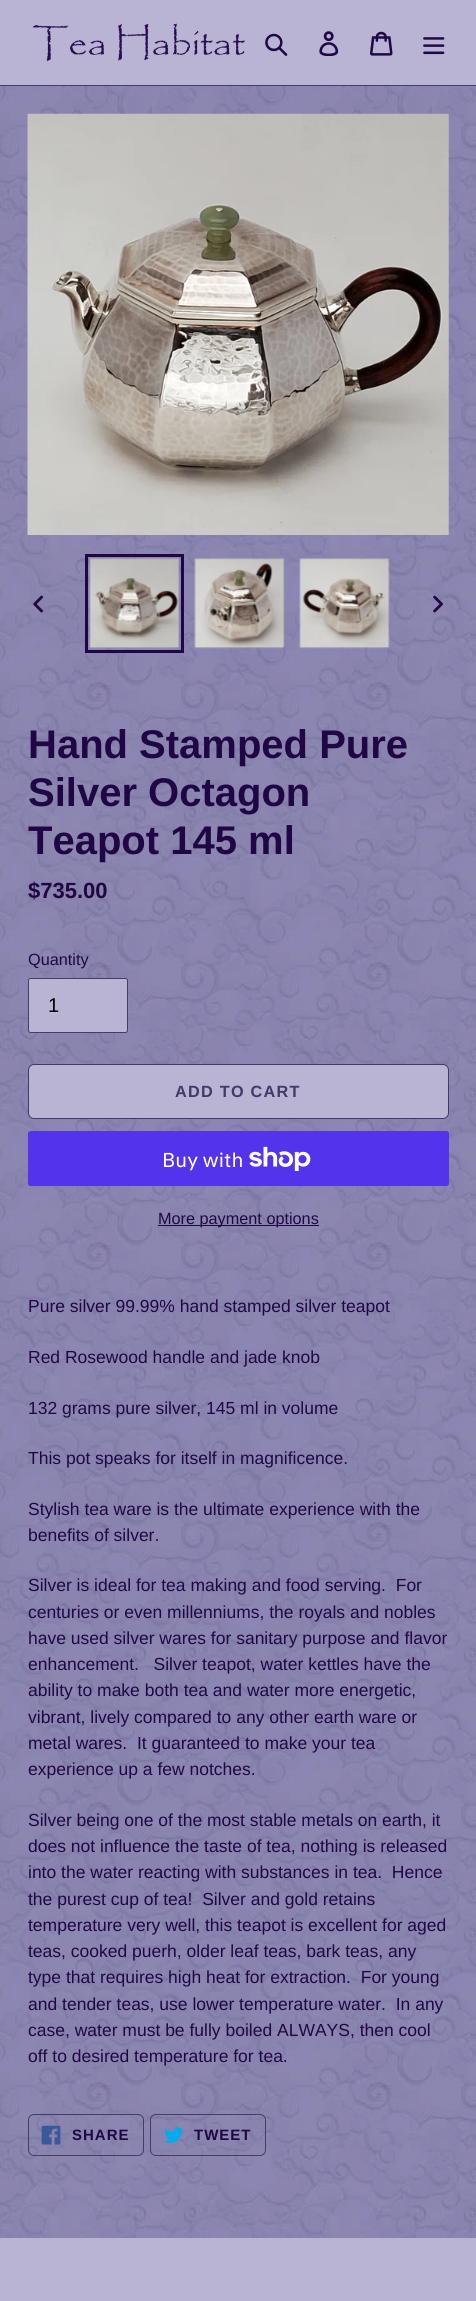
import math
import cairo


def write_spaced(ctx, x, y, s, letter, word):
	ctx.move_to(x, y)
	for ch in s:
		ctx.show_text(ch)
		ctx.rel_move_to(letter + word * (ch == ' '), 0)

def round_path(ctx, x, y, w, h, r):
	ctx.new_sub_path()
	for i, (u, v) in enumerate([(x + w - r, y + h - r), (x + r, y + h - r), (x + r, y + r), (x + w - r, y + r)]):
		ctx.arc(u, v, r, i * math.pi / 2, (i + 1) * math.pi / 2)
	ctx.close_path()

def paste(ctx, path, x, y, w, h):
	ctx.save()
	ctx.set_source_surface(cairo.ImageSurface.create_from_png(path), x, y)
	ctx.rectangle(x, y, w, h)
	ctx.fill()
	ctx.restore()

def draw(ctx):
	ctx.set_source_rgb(1, 1, 1)
	ctx.paint()
	paste(ctx, 'media/1.png', 0, 86, 476, 2152)
	ctx.set_source_rgb(0.725, 0.702, 0.831)
	ctx.rectangle(0, 0, 476, 85)
	ctx.fill()
	ctx.set_source_rgb(0.267, 0.239, 0.412)
	ctx.rectangle(0, 85, 476, 1)
	ctx.fill()
	paste(ctx, 'media/2.png', 32, 23, 213, 39)
	paste(ctx, 'media/3.png', 265, 33, 23, 23)
	paste(ctx, 'media/4.png', 319, 31, 20, 25)
	paste(ctx, 'media/5.png', 370, 31, 23, 25)
	paste(ctx, 'media/6.png', 423, 37, 22, 18)
	paste(ctx, 'media/7.png', 27, 113, 422, 422)
	paste(ctx, 'media/8.png', 33, 595, 10, 18)
	ctx.rectangle(86.5, 555.5, 96, 96)
	ctx.set_source_rgb(0.125, 0.027, 0.271)
	ctx.set_line_width(3)
	ctx.stroke()
	paste(ctx, 'media/9.png', 89, 558, 91, 91)
	paste(ctx, 'media/10.png', 194, 558, 91, 91)
	paste(ctx, 'media/11.png', 299, 558, 91, 91)
	paste(ctx, 'media/12.png', 433, 595, 10, 18)
	ctx.select_font_face('Liberation Sans', cairo.FONT_SLANT_NORMAL, cairo.FONT_WEIGHT_BOLD)
	ctx.set_font_size(40)
	for x, y, s in [
		(28, 758, 'Hand Stamped Pure'),
		(28, 806, 'Silver Octagon'),
		(28, 854, 'Teapot 145 ml'),
	]:
		ctx.move_to(x, y)
		ctx.show_text(s)
	ctx.set_font_size(22)
	ctx.move_to(28, 898)
	ctx.show_text('$735.00')
	ctx.select_font_face('Liberation Sans')
	ctx.set_font_size(16.25)
	ctx.move_to(28, 965)
	ctx.show_text('Quantity')
	ctx.set_source_rgb(0.725, 0.702, 0.831)
	round_path(ctx, 28.5, 978.5, 99, 54, 2)
	ctx.fill_preserve()
	ctx.set_source_rgb(0.267, 0.239, 0.412)
	ctx.set_line_width(1)
	ctx.stroke()
	ctx.set_font_size(20)
	ctx.set_source_rgb(0, 0, 0)
	ctx.move_to(48, 1012)
	ctx.show_text('1')
	ctx.set_source_rgb(0.725, 0.702, 0.831)
	round_path(ctx, 28.5, 1064.5, 420, 54, 5.5)
	ctx.fill_preserve()
	ctx.set_source_rgb(0.255, 0.224, 0.408)
	ctx.stroke()
	ctx.select_font_face('Liberation Sans', cairo.FONT_SLANT_NORMAL, cairo.FONT_WEIGHT_BOLD)
	ctx.set_font_size(16.25)
	write_spaced(ctx, 175, 1097, 'ADD TO CART', 1.25, 0)
	ctx.set_source_rgb(0.329, 0.2, 0.922)
	round_path(ctx, 28, 1131, 421, 55, 2.5)
	ctx.fill()
	ctx.select_font_face('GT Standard')
	ctx.set_font_size(20)
	ctx.set_source_rgb(1, 1, 1)
	ctx.move_to(162, 1167)
	ctx.show_text('Buy with')
	paste(ctx, 'media/13.png', 249, 1146, 62, 25)
	ctx.set_source_rgb(0.125, 0.027, 0.271)
	ctx.rectangle(158, 1225, 161, 1)
	ctx.fill()
	ctx.select_font_face('Liberation Sans')
	ctx.set_font_size(16.25)
	ctx.move_to(158, 1224)
	ctx.show_text('More payment options')
	ctx.set_font_size(17.5)
	for x, y, s in [
		(28, 1312, 'Pure silver 99.99% hand stamped silver teapot'),
		(28, 1363, 'Red Rosewood handle and jade knob'),
		(28, 1414, '132 grams pure silver, 145 ml in volume'),
		(28, 1464, 'This pot speaks for itself in magnificence.'),
		(28, 1515, 'Stylish tea ware is the ultimate experience with the'),
		(28, 1541, 'benefits of silver.'),
		(28, 1591, 'Silver is ideal for tea making and food serving.  For'),
		(28, 1618, 'centuries or even millenniums, the royals and nobles'),
		(28, 1644, 'have used silver wares for sanitary purpose and flavor'),
		(28, 1670, 'enhancement.   Silver teapot, water kettles have the'),
		(28, 1696, 'ability to make both tea and water more energetic,'),
		(28, 1723, 'vibrant, lively compared to any other earth ware or'),
		(28, 1749, 'metal wares.  It guaranteed to make your tea'),
		(28, 1775, 'experience up a few notches.'),
		(28, 1826, 'Silver being one of the most stable metals on earth, it'),
		(28, 1852, 'does not influence the taste of tea, nothing is released'),
		(28, 1878, 'into the water reacting with substances in tea.  Hence'),
		(28, 1905, 'the purest cup of tea!  Silver and gold retains'),
		(28, 1931, 'temperature very well, this teapot is excellent for aged'),
		(28, 1957, 'teas, cooked puerh, older leaf teas, bark teas, any'),
		(28, 1983, 'type that requires high heat for extraction.  For young'),
		(28, 2010, 'and tender teas, use lower temperature water.  In any'),
		(28, 2036, 'case, water must be fully boiled ALWAYS, then cool'),
		(28, 2062, 'off to desired temperature for tea.'),
	]:
		ctx.move_to(x, y)
		ctx.show_text(s)
	round_path(ctx, 28.5, 2114.5, 115, 41, 5.5)
	ctx.set_source_rgb(0.267, 0.239, 0.412)
	ctx.stroke()
	paste(ctx, 'media/14.png', 41, 2125, 20, 20)
	ctx.select_font_face('Liberation Sans', cairo.FONT_SLANT_NORMAL, cairo.FONT_WEIGHT_BOLD)
	ctx.set_font_size(15)
	ctx.set_source_rgb(0.125, 0.027, 0.271)
	write_spaced(ctx, 72, 2140, 'SHARE', 1, 0)
	round_path(ctx, 150.5, 2114.5, 115, 41, 5.5)
	ctx.set_source_rgb(0.267, 0.239, 0.412)
	ctx.stroke()
	paste(ctx, 'media/15.png', 164, 2127, 20, 16)
	ctx.set_source_rgb(0.125, 0.027, 0.271)
	write_spaced(ctx, 194, 2140, 'TWEET', 1, 0)
	ctx.set_source_rgb(0.725, 0.702, 0.831)
	ctx.rectangle(0, 2238, 476, 63)
	ctx.fill()


surface = cairo.ImageSurface(cairo.FORMAT_RGB24, 476, 2301)
ctx = cairo.Context(surface)
options = cairo.FontOptions()
options.set_hint_metrics(cairo.HINT_METRICS_OFF)
options.set_hint_style(cairo.HINT_STYLE_NONE)
ctx.set_font_options(options)
ctx.set_miter_limit(4)
draw(ctx)
surface.write_to_png('image.png')
